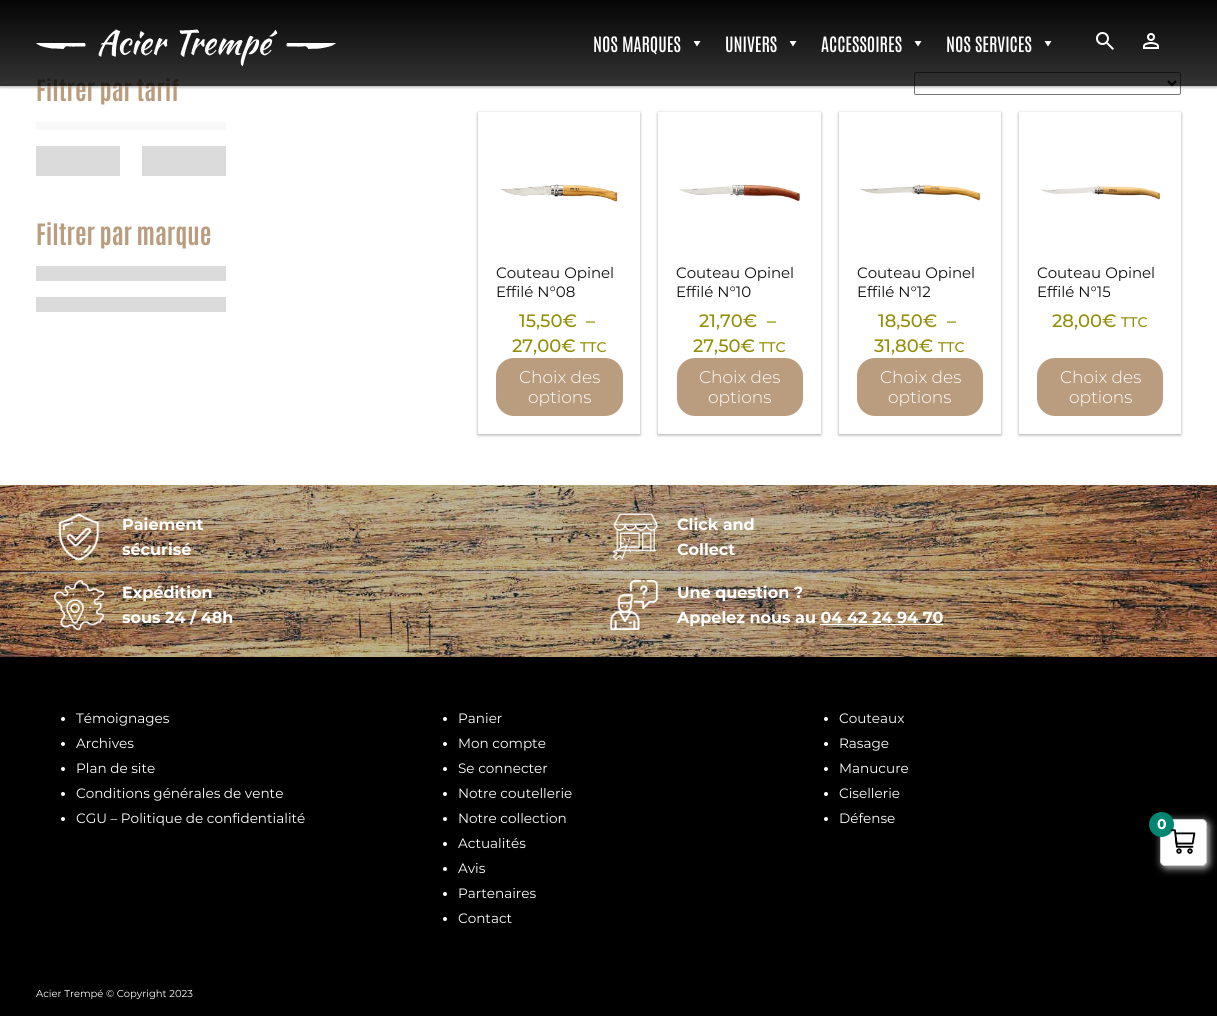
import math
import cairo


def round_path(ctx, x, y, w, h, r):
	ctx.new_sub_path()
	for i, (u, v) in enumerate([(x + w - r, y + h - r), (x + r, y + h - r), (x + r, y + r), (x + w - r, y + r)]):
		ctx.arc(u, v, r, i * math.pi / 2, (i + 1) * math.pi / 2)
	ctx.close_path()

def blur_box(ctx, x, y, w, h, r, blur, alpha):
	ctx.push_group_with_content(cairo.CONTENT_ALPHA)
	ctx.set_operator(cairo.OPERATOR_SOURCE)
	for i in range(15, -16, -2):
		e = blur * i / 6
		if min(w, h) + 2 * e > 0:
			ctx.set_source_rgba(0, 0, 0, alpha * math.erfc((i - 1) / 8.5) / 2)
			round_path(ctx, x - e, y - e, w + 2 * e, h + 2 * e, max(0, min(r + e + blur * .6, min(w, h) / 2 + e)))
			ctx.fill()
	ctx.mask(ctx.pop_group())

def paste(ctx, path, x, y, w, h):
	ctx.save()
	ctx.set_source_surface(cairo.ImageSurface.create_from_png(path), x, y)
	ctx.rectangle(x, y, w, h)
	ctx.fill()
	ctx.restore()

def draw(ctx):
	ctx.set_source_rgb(1, 1, 1)
	ctx.paint()
	round_path(ctx, 914.5, 72.5, 266, 22, 1.5)
	ctx.set_source_rgb(0.463, 0.463, 0.463)
	ctx.set_line_width(1)
	ctx.stroke()
	ctx.new_path()
	ctx.move_to(1168, 81)
	ctx.line_to(1172, 85)
	ctx.line_to(1176, 81)
	ctx.set_source_rgb(0.059, 0.059, 0.059)
	ctx.set_line_width(2)
	ctx.stroke()
	ctx.save()
	ctx.rectangle(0, 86, 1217, 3)
	ctx.clip()
	ctx.set_source_rgb(0, 0, 0)
	blur_box(ctx, 0, 1, 1217, 86, 0, 1.5, 0.35)
	ctx.restore()
	ctx.select_font_face('Antonio', cairo.FONT_SLANT_NORMAL, cairo.FONT_WEIGHT_BOLD)
	ctx.set_font_size(25)
	ctx.set_source_rgb(0.729, 0.612, 0.494)
	ctx.move_to(36, 101)
	ctx.show_text('Filtrer par tarif')
	ctx.set_source_rgba(0, 0, 0, 0.8)
	ctx.rectangle(0, 0, 1217, 86)
	ctx.fill()
	gradient = cairo.LinearGradient(609, 0, 609, 86)
	gradient.add_color_stop_rgba(0, 0, 0, 0, 0.9)
	gradient.add_color_stop_rgba(1, 0, 0, 0, 0)
	ctx.set_source(gradient)
	ctx.rectangle(0, 0, 1217, 81)
	ctx.fill()
	paste(ctx, 'media/1.png', 36, 29, 300, 38)
	ctx.select_font_face('Antonio Medium')
	ctx.set_font_size(18)
	ctx.set_source_rgb(1, 1, 1)
	ctx.move_to(593, 52)
	ctx.show_text('NOS MARQUES')
	ctx.new_path()
	ctx.move_to(700.5, 41)
	ctx.line_to(697, 46.5)
	ctx.line_to(693.5, 41)
	ctx.close_path()
	ctx.fill()
	ctx.move_to(725, 52)
	ctx.show_text('UNIVERS')
	ctx.new_path()
	ctx.move_to(796.5, 41)
	ctx.line_to(793, 46.5)
	ctx.line_to(789.5, 41)
	ctx.close_path()
	ctx.fill()
	ctx.move_to(821, 52)
	ctx.show_text('ACCESSOIRES')
	ctx.new_path()
	ctx.move_to(921.5, 41)
	ctx.line_to(918, 46.5)
	ctx.line_to(914.5, 41)
	ctx.close_path()
	ctx.fill()
	ctx.move_to(946, 52)
	ctx.show_text('NOS SERVICES')
	ctx.new_path()
	ctx.move_to(1051.5, 41)
	ctx.line_to(1048, 46.5)
	ctx.line_to(1044.5, 41)
	ctx.close_path()
	ctx.fill()
	paste(ctx, 'media/2.png', 1096, 32, 18, 18)
	paste(ctx, 'media/3.png', 1143, 33, 16, 16)
	ctx.set_source_rgb(0.973, 0.973, 0.973)
	ctx.rectangle(36, 122, 190, 8)
	ctx.fill()
	ctx.set_source_rgb(0.859, 0.859, 0.859)
	ctx.rectangle(36, 146, 84, 30)
	ctx.rectangle(142, 146, 84, 30)
	ctx.fill()
	ctx.select_font_face('Antonio', cairo.FONT_SLANT_NORMAL, cairo.FONT_WEIGHT_BOLD)
	ctx.set_font_size(25)
	ctx.set_source_rgb(0.729, 0.612, 0.494)
	ctx.move_to(36, 245)
	ctx.show_text('Filtrer par marque')
	ctx.set_source_rgb(0.859, 0.859, 0.859)
	ctx.rectangle(36, 266, 190, 15)
	ctx.fill()
	ctx.rectangle(36, 297, 190, 15)
	ctx.fill()
	ctx.save()
	ctx.set_fill_rule(cairo.FILL_RULE_EVEN_ODD)
	ctx.new_path()
	ctx.move_to(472, 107)
	ctx.line_to(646, 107)
	ctx.line_to(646, 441)
	ctx.line_to(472, 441)
	ctx.close_path()
	ctx.move_to(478, 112)
	ctx.line_to(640, 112)
	ctx.line_to(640, 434)
	ctx.line_to(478, 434)
	ctx.close_path()
	ctx.clip()
	ctx.set_source_rgb(0, 0, 0)
	blur_box(ctx, 478, 113, 162, 322, 0, 1.5, 0.35)
	ctx.restore()
	paste(ctx, 'media/4.png', 500, 184, 118, 18)
	ctx.select_font_face('Montserrat')
	ctx.set_font_size(15)
	ctx.set_source_rgb(0.059, 0.059, 0.059)
	ctx.move_to(496, 278)
	ctx.show_text('Couteau Opinel')
	ctx.move_to(496, 297)
	ctx.show_text('Effilé N°08')
	ctx.select_font_face('Montserrat Medium')
	ctx.set_font_size(18)
	ctx.set_source_rgb(0.584, 0.557, 0.035)
	for x, y, s in [
		(519, 327, '15,50€'),
		(586, 327, '–'),
		(512, 352, '27,00€'),
	]:
		ctx.move_to(x, y)
		ctx.show_text(s)
	ctx.set_font_size(14)
	ctx.move_to(580, 352)
	ctx.show_text('TTC')
	ctx.set_source_rgb(0.729, 0.612, 0.494)
	round_path(ctx, 496, 358, 127, 58, 18)
	ctx.fill()
	ctx.select_font_face('Montserrat Light')
	ctx.set_font_size(17)
	ctx.set_source_rgb(1, 1, 1)
	ctx.move_to(519, 383)
	ctx.show_text('Choix des')
	ctx.move_to(528, 403)
	ctx.show_text('options')
	ctx.save()
	ctx.set_fill_rule(cairo.FILL_RULE_EVEN_ODD)
	ctx.new_path()
	ctx.move_to(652, 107)
	ctx.line_to(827, 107)
	ctx.line_to(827, 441)
	ctx.line_to(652, 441)
	ctx.close_path()
	ctx.move_to(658, 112)
	ctx.line_to(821, 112)
	ctx.line_to(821, 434)
	ctx.line_to(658, 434)
	ctx.close_path()
	ctx.clip()
	ctx.set_source_rgb(0, 0, 0)
	blur_box(ctx, 658, 113, 163, 322, 0, 1.5, 0.35)
	ctx.restore()
	paste(ctx, 'media/5.png', 679, 184, 121, 18)
	ctx.select_font_face('Montserrat')
	ctx.set_font_size(15)
	ctx.set_source_rgb(0.059, 0.059, 0.059)
	ctx.move_to(676, 278)
	ctx.show_text('Couteau Opinel')
	ctx.move_to(676, 297)
	ctx.show_text('Effilé N°10')
	ctx.select_font_face('Montserrat Medium')
	ctx.set_font_size(18)
	ctx.set_source_rgb(0.584, 0.557, 0.035)
	for x, y, s in [
		(699, 327, '21,70€'),
		(767, 327, '–'),
		(693, 352, '27,50€'),
	]:
		ctx.move_to(x, y)
		ctx.show_text(s)
	ctx.set_font_size(14)
	ctx.move_to(759, 352)
	ctx.show_text('TTC')
	ctx.set_source_rgb(0.729, 0.612, 0.494)
	round_path(ctx, 677, 358, 126, 58, 18)
	ctx.fill()
	ctx.select_font_face('Montserrat Light')
	ctx.set_font_size(17)
	ctx.set_source_rgb(1, 1, 1)
	ctx.move_to(699, 383)
	ctx.show_text('Choix des')
	ctx.move_to(708, 403)
	ctx.show_text('options')
	ctx.save()
	ctx.set_fill_rule(cairo.FILL_RULE_EVEN_ODD)
	ctx.new_path()
	ctx.move_to(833, 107)
	ctx.line_to(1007, 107)
	ctx.line_to(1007, 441)
	ctx.line_to(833, 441)
	ctx.close_path()
	ctx.move_to(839, 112)
	ctx.line_to(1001, 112)
	ctx.line_to(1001, 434)
	ctx.line_to(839, 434)
	ctx.close_path()
	ctx.clip()
	ctx.set_source_rgb(0, 0, 0)
	blur_box(ctx, 839, 113, 162, 322, 0, 1.5, 0.35)
	ctx.restore()
	paste(ctx, 'media/6.png', 860, 185, 121, 16)
	ctx.select_font_face('Montserrat')
	ctx.set_font_size(15)
	ctx.set_source_rgb(0.059, 0.059, 0.059)
	ctx.move_to(857, 278)
	ctx.show_text('Couteau Opinel')
	ctx.move_to(857, 297)
	ctx.show_text('Effilé N°12')
	ctx.select_font_face('Montserrat Medium')
	ctx.set_font_size(18)
	ctx.set_source_rgb(0.584, 0.557, 0.035)
	for x, y, s in [
		(878, 327, '18,50€'),
		(947, 327, '–'),
		(874, 352, '31,80€'),
	]:
		ctx.move_to(x, y)
		ctx.show_text(s)
	ctx.set_font_size(14)
	ctx.move_to(938, 352)
	ctx.show_text('TTC')
	ctx.set_source_rgb(0.729, 0.612, 0.494)
	round_path(ctx, 857, 358, 126, 58, 18)
	ctx.fill()
	ctx.select_font_face('Montserrat Light')
	ctx.set_font_size(17)
	ctx.set_source_rgb(1, 1, 1)
	ctx.move_to(880, 383)
	ctx.show_text('Choix des')
	ctx.move_to(888, 403)
	ctx.show_text('options')
	ctx.save()
	ctx.set_fill_rule(cairo.FILL_RULE_EVEN_ODD)
	ctx.new_path()
	ctx.move_to(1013, 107)
	ctx.line_to(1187, 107)
	ctx.line_to(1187, 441)
	ctx.line_to(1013, 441)
	ctx.close_path()
	ctx.move_to(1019, 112)
	ctx.line_to(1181, 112)
	ctx.line_to(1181, 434)
	ctx.line_to(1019, 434)
	ctx.close_path()
	ctx.clip()
	ctx.set_source_rgb(0, 0, 0)
	blur_box(ctx, 1019, 113, 162, 322, 0, 1.5, 0.35)
	ctx.restore()
	paste(ctx, 'media/7.png', 1040, 186, 120, 14)
	ctx.select_font_face('Montserrat')
	ctx.set_font_size(15)
	ctx.set_source_rgb(0.059, 0.059, 0.059)
	ctx.move_to(1037, 278)
	ctx.show_text('Couteau Opinel')
	ctx.move_to(1037, 297)
	ctx.show_text('Effilé N°15')
	ctx.select_font_face('Montserrat Medium')
	ctx.set_font_size(18)
	ctx.set_source_rgb(0.584, 0.557, 0.035)
	ctx.move_to(1052, 327)
	ctx.show_text('28,00€')
	ctx.set_font_size(14)
	ctx.move_to(1121, 327)
	ctx.show_text('TTC')
	ctx.set_source_rgb(0.729, 0.612, 0.494)
	round_path(ctx, 1037, 358, 126, 58, 18)
	ctx.fill()
	ctx.select_font_face('Montserrat Light')
	ctx.set_font_size(17)
	ctx.set_source_rgb(1, 1, 1)
	ctx.move_to(1060, 383)
	ctx.show_text('Choix des')
	ctx.move_to(1069, 403)
	ctx.show_text('options')
	ctx.set_source_rgb(0, 0, 0)
	ctx.rectangle(0, 657, 1217, 359)
	ctx.fill()
	paste(ctx, 'media/8.png', 0, 485, 1217, 172)
	paste(ctx, 'media/9.png', 58, 513, 42, 48)
	ctx.select_font_face('Montserrat', cairo.FONT_SLANT_NORMAL, cairo.FONT_WEIGHT_BOLD)
	ctx.set_font_size(16)
	ctx.set_source_rgb(1, 1, 1)
	ctx.move_to(122, 530)
	ctx.show_text('Paiement')
	ctx.move_to(122, 555)
	ctx.show_text('sécurisé')
	paste(ctx, 'media/10.png', 613, 513, 46, 48)
	ctx.move_to(677, 530)
	ctx.show_text('Click and')
	ctx.move_to(677, 555)
	ctx.show_text('Collect')
	paste(ctx, 'media/11.png', 54, 580, 50, 50)
	ctx.move_to(122, 598)
	ctx.show_text('Expédition')
	ctx.move_to(122, 623)
	ctx.show_text('sous 24 / 48h')
	paste(ctx, 'media/12.png', 609, 580, 50, 50)
	ctx.move_to(677, 598)
	ctx.show_text('Une question ?')
	ctx.move_to(677, 623)
	ctx.show_text('Appelez nous au 04 42 24 94 70')
	ctx.rectangle(820, 624, 123, 1)
	ctx.fill()
	ctx.arc(63, 719, 2, 0, 2 * math.pi)
	ctx.fill()
	ctx.select_font_face('Montserrat')
	ctx.set_font_size(13.6)
	ctx.move_to(76, 723)
	ctx.show_text('Témoignages')
	ctx.new_path()
	ctx.arc(63, 744, 2, 0, 2 * math.pi)
	ctx.fill()
	ctx.move_to(76, 748)
	ctx.show_text('Archives')
	ctx.new_path()
	ctx.arc(63, 769, 2, 0, 2 * math.pi)
	ctx.fill()
	ctx.move_to(76, 773)
	ctx.show_text('Plan de site')
	ctx.new_path()
	ctx.arc(63, 794, 2, 0, 2 * math.pi)
	ctx.fill()
	ctx.move_to(76, 798)
	ctx.show_text('Conditions générales de vente')
	ctx.new_path()
	ctx.arc(63, 819, 2, 0, 2 * math.pi)
	ctx.fill()
	ctx.move_to(76, 823)
	ctx.show_text('CGU – Politique de confidentialité')
	ctx.new_path()
	ctx.arc(445, 719, 2, 0, 2 * math.pi)
	ctx.fill()
	ctx.move_to(458, 723)
	ctx.show_text('Panier')
	ctx.new_path()
	ctx.arc(445, 744, 2, 0, 2 * math.pi)
	ctx.fill()
	ctx.move_to(458, 748)
	ctx.show_text('Mon compte')
	ctx.new_path()
	ctx.arc(445, 769, 2, 0, 2 * math.pi)
	ctx.fill()
	ctx.move_to(458, 773)
	ctx.show_text('Se connecter')
	ctx.new_path()
	ctx.arc(445, 794, 2, 0, 2 * math.pi)
	ctx.fill()
	ctx.move_to(458, 798)
	ctx.show_text('Notre coutellerie')
	ctx.new_path()
	ctx.arc(445, 819, 2, 0, 2 * math.pi)
	ctx.fill()
	ctx.move_to(458, 823)
	ctx.show_text('Notre collection')
	ctx.new_path()
	ctx.arc(445, 844, 2, 0, 2 * math.pi)
	ctx.fill()
	ctx.move_to(458, 848)
	ctx.show_text('Actualités')
	ctx.new_path()
	ctx.arc(445, 869, 2, 0, 2 * math.pi)
	ctx.fill()
	ctx.move_to(458, 873)
	ctx.show_text('Avis')
	ctx.new_path()
	ctx.arc(445, 894, 2, 0, 2 * math.pi)
	ctx.fill()
	ctx.move_to(458, 898)
	ctx.show_text('Partenaires')
	ctx.new_path()
	ctx.arc(445, 919, 2, 0, 2 * math.pi)
	ctx.fill()
	ctx.move_to(458, 923)
	ctx.show_text('Contact')
	ctx.new_path()
	ctx.arc(826, 719, 2, 0, 2 * math.pi)
	ctx.fill()
	ctx.move_to(839, 723)
	ctx.show_text('Couteaux')
	ctx.new_path()
	ctx.arc(826, 744, 2, 0, 2 * math.pi)
	ctx.fill()
	ctx.move_to(839, 748)
	ctx.show_text('Rasage')
	ctx.new_path()
	ctx.arc(826, 769, 2, 0, 2 * math.pi)
	ctx.fill()
	ctx.move_to(839, 773)
	ctx.show_text('Manucure')
	ctx.new_path()
	ctx.arc(826, 794, 2, 0, 2 * math.pi)
	ctx.fill()
	ctx.move_to(839, 798)
	ctx.show_text('Cisellerie')
	ctx.new_path()
	ctx.arc(826, 819, 2, 0, 2 * math.pi)
	ctx.fill()
	ctx.move_to(839, 823)
	ctx.show_text('Défense')
	ctx.set_font_size(10)
	ctx.move_to(36, 997)
	ctx.show_text('Acier Trempé © Copyright 2023')
	ctx.set_source_rgb(0.8, 0.8, 0.8)
	blur_box(ctx, 1162, 821, 47, 47, 5, 4, 1)
	ctx.set_source_rgb(1, 1, 1)
	round_path(ctx, 1160.5, 819.5, 46, 46, 4.5)
	ctx.fill_preserve()
	ctx.set_source_rgb(0.8, 0.8, 0.8)
	ctx.set_line_width(1)
	ctx.stroke()
	ctx.set_source_rgb(0, 0.525, 0.443)
	ctx.arc(1161.5, 824.5, 12.5, 0, 2 * math.pi)
	ctx.fill()
	ctx.select_font_face('Montserrat', cairo.FONT_SLANT_NORMAL, cairo.FONT_WEIGHT_BOLD)
	ctx.set_font_size(14)
	ctx.set_source_rgb(1, 1, 1)
	ctx.move_to(1157, 829)
	ctx.show_text('0')
	paste(ctx, 'media/13.png', 1170, 829, 26, 25)


surface = cairo.ImageSurface(cairo.FORMAT_RGB24, 1217, 1016)
ctx = cairo.Context(surface)
options = cairo.FontOptions()
options.set_hint_metrics(cairo.HINT_METRICS_OFF)
options.set_hint_style(cairo.HINT_STYLE_NONE)
ctx.set_font_options(options)
ctx.set_miter_limit(4)
draw(ctx)
surface.write_to_png('image.png')
